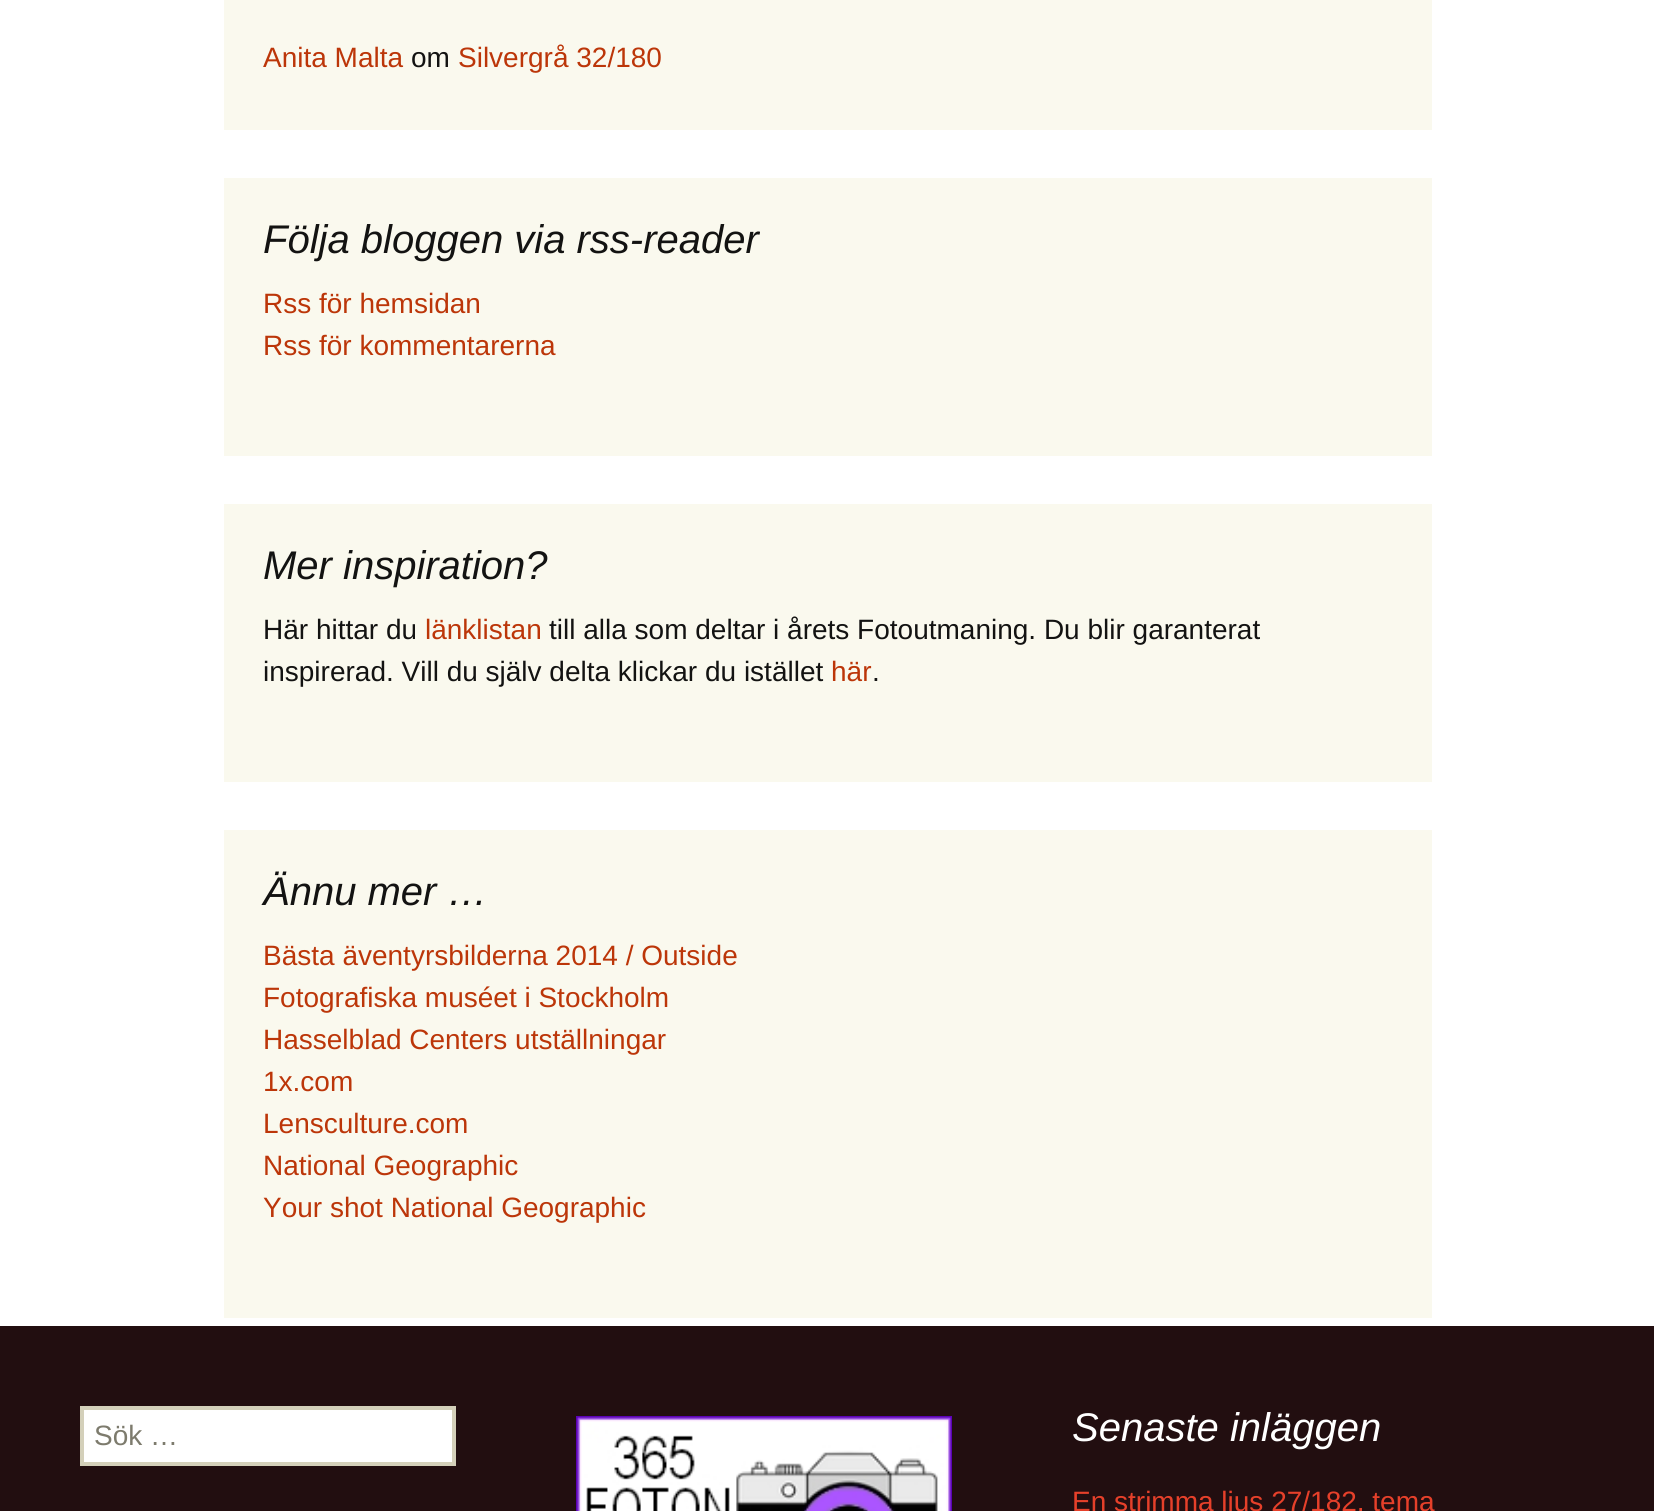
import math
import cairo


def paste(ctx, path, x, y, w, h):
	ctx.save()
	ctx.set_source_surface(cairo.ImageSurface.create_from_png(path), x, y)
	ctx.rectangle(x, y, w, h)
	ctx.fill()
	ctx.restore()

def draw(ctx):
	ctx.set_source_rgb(1, 1, 1)
	ctx.paint()
	ctx.set_source_rgb(0.98, 0.973, 0.933)
	ctx.rectangle(224, 0, 1208, 130)
	ctx.fill()
	ctx.select_font_face('Liberation Sans')
	ctx.set_font_size(28)
	ctx.set_source_rgb(0.737, 0.212, 0.039)
	ctx.move_to(263, 67)
	ctx.show_text('Anita Malta')
	ctx.set_source_rgb(0.078, 0.078, 0.071)
	ctx.move_to(411, 67)
	ctx.show_text('om')
	ctx.set_source_rgb(0.737, 0.212, 0.039)
	ctx.move_to(458, 67)
	ctx.show_text('Silvergrå 32/180')
	ctx.set_source_rgb(0.98, 0.973, 0.933)
	ctx.rectangle(224, 178, 1208, 278)
	ctx.fill()
	ctx.select_font_face('Liberation Sans', cairo.FONT_SLANT_ITALIC)
	ctx.set_font_size(40)
	ctx.set_source_rgb(0.078, 0.078, 0.071)
	ctx.move_to(263, 253)
	ctx.show_text('Följa bloggen via rss-reader')
	ctx.select_font_face('Liberation Sans')
	ctx.set_font_size(28)
	ctx.set_source_rgb(0.737, 0.212, 0.039)
	ctx.move_to(263, 313)
	ctx.show_text('Rss för hemsidan')
	ctx.move_to(263, 355)
	ctx.show_text('Rss för kommentarerna')
	ctx.set_source_rgb(0.98, 0.973, 0.933)
	ctx.rectangle(224, 504, 1208, 278)
	ctx.fill()
	ctx.select_font_face('Liberation Sans', cairo.FONT_SLANT_ITALIC)
	ctx.set_font_size(40)
	ctx.set_source_rgb(0.078, 0.078, 0.071)
	ctx.move_to(263, 579)
	ctx.show_text('Mer inspiration?')
	ctx.select_font_face('Liberation Sans')
	ctx.set_font_size(28)
	ctx.move_to(263, 639)
	ctx.show_text('Här hittar du')
	ctx.set_source_rgb(0.737, 0.212, 0.039)
	ctx.move_to(425, 639)
	ctx.show_text('länklistan')
	ctx.set_source_rgb(0.078, 0.078, 0.071)
	ctx.move_to(549, 639)
	ctx.show_text('till alla som deltar i årets Fotoutmaning. Du blir garanterat')
	ctx.move_to(263, 681)
	ctx.show_text('inspirerad. Vill du själv delta klickar du istället')
	ctx.set_source_rgb(0.737, 0.212, 0.039)
	ctx.move_to(831, 681)
	ctx.show_text('här')
	ctx.set_source_rgb(0.078, 0.078, 0.071)
	ctx.move_to(872, 681)
	ctx.show_text('.')
	ctx.set_source_rgb(0.98, 0.973, 0.933)
	ctx.rectangle(224, 830, 1208, 488)
	ctx.fill()
	ctx.select_font_face('Liberation Sans', cairo.FONT_SLANT_ITALIC)
	ctx.set_font_size(40)
	ctx.set_source_rgb(0.078, 0.078, 0.071)
	ctx.move_to(263, 905)
	ctx.show_text('Ännu mer …')
	ctx.select_font_face('Liberation Sans')
	ctx.set_font_size(28)
	ctx.set_source_rgb(0.737, 0.212, 0.039)
	for x, y, s in [
		(263, 965, 'Bästa äventyrsbilderna 2014 / Outside'),
		(263, 1007, 'Fotografiska muséet i Stockholm'),
		(263, 1049, 'Hasselblad Centers utställningar'),
		(263, 1091, '1x.com'),
		(263, 1133, 'Lensculture.com'),
		(263, 1175, 'National Geographic'),
		(263, 1217, 'Your shot National Geographic'),
	]:
		ctx.move_to(x, y)
		ctx.show_text(s)
	ctx.set_source_rgb(0.133, 0.055, 0.063)
	ctx.rectangle(0, 1326, 1654, 185)
	ctx.fill()
	ctx.set_source_rgb(1, 1, 1)
	ctx.rectangle(82, 1408, 372, 56)
	ctx.fill_preserve()
	ctx.set_source_rgb(0.831, 0.816, 0.729)
	ctx.set_line_width(4)
	ctx.stroke()
	ctx.set_source_rgb(0.49, 0.482, 0.427)
	ctx.move_to(94, 1445)
	ctx.show_text('Sök …')
	paste(ctx, 'media/1.png', 576, 1416, 376, 95)
	ctx.select_font_face('Liberation Sans', cairo.FONT_SLANT_ITALIC)
	ctx.set_font_size(40)
	ctx.set_source_rgb(1, 1, 1)
	ctx.move_to(1072, 1441)
	ctx.show_text('Senaste inläggen')
	ctx.select_font_face('Liberation Sans')
	ctx.set_font_size(28)
	ctx.set_source_rgb(0.902, 0.251, 0.165)
	ctx.move_to(1072, 1511)
	ctx.show_text('En strimma ljus 27/182, tema')


surface = cairo.ImageSurface(cairo.FORMAT_RGB24, 1654, 1511)
ctx = cairo.Context(surface)
options = cairo.FontOptions()
options.set_hint_metrics(cairo.HINT_METRICS_OFF)
options.set_hint_style(cairo.HINT_STYLE_NONE)
ctx.set_font_options(options)
ctx.set_miter_limit(4)
draw(ctx)
surface.write_to_png('image.png')
